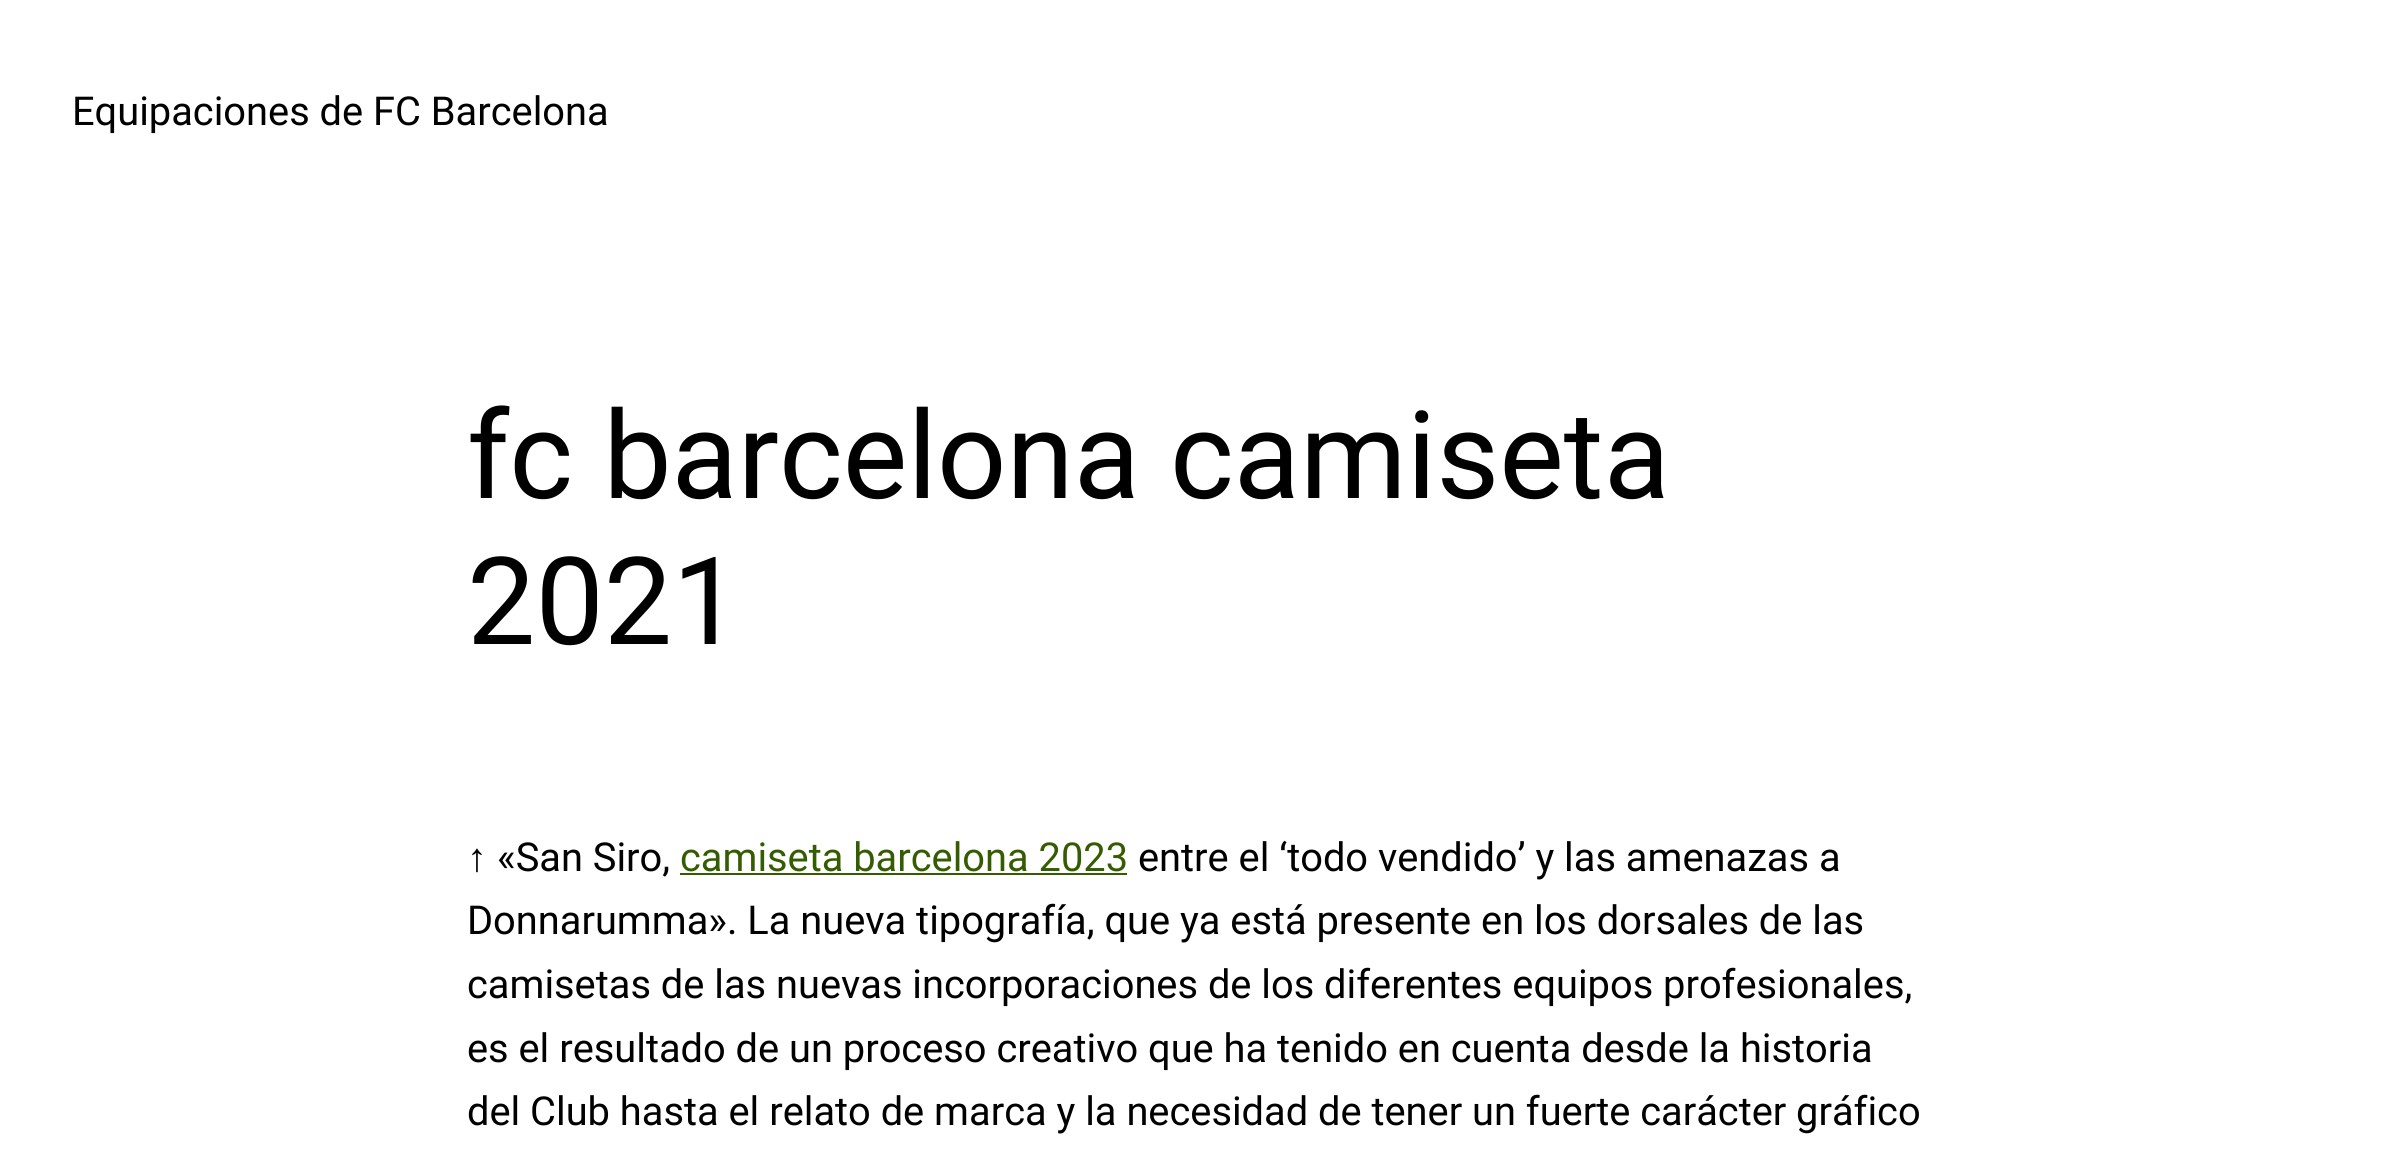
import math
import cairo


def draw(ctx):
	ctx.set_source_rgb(1, 1, 1)
	ctx.paint()
	ctx.select_font_face('Roboto')
	ctx.set_font_size(39.8)
	ctx.set_source_rgb(0, 0, 0)
	ctx.move_to(72, 125)
	ctx.show_text('Equipaciones de FC Barcelona')
	ctx.set_font_size(121.75)
	ctx.move_to(467, 498)
	ctx.show_text('fc barcelona camiseta')
	ctx.move_to(467, 644)
	ctx.show_text('2021')
	ctx.select_font_face('Liberation Sans')
	ctx.set_font_size(39.8)
	ctx.move_to(467, 871)
	ctx.show_text('↑')
	ctx.select_font_face('Roboto')
	ctx.move_to(497, 871)
	ctx.show_text('«San Siro,')
	ctx.set_source_rgb(0.204, 0.361, 0)
	ctx.move_to(680, 871)
	ctx.show_text('camiseta barcelona 2023')
	ctx.rectangle(680, 873, 447, 2)
	ctx.fill()
	ctx.set_source_rgb(0, 0, 0)
	for x, y, s in [
		(1138, 871, 'entre el ‘todo vendido’ y las amenazas a'),
		(467, 934, 'Donnarumma». La nueva tipografía, que ya está presente en los dorsales de las'),
		(467, 998, 'camisetas de las nuevas incorporaciones de los diferentes equipos profesionales,'),
		(467, 1062, 'es el resultado de un proceso creativo que ha tenido en cuenta desde la historia'),
		(467, 1125, 'del Club hasta el relato de marca y la necesidad de tener un fuerte carácter gráfico'),
	]:
		ctx.move_to(x, y)
		ctx.show_text(s)


surface = cairo.ImageSurface(cairo.FORMAT_RGB24, 2395, 1151)
ctx = cairo.Context(surface)
options = cairo.FontOptions()
options.set_hint_metrics(cairo.HINT_METRICS_OFF)
options.set_hint_style(cairo.HINT_STYLE_NONE)
ctx.set_font_options(options)
ctx.set_miter_limit(4)
draw(ctx)
surface.write_to_png('image.png')
